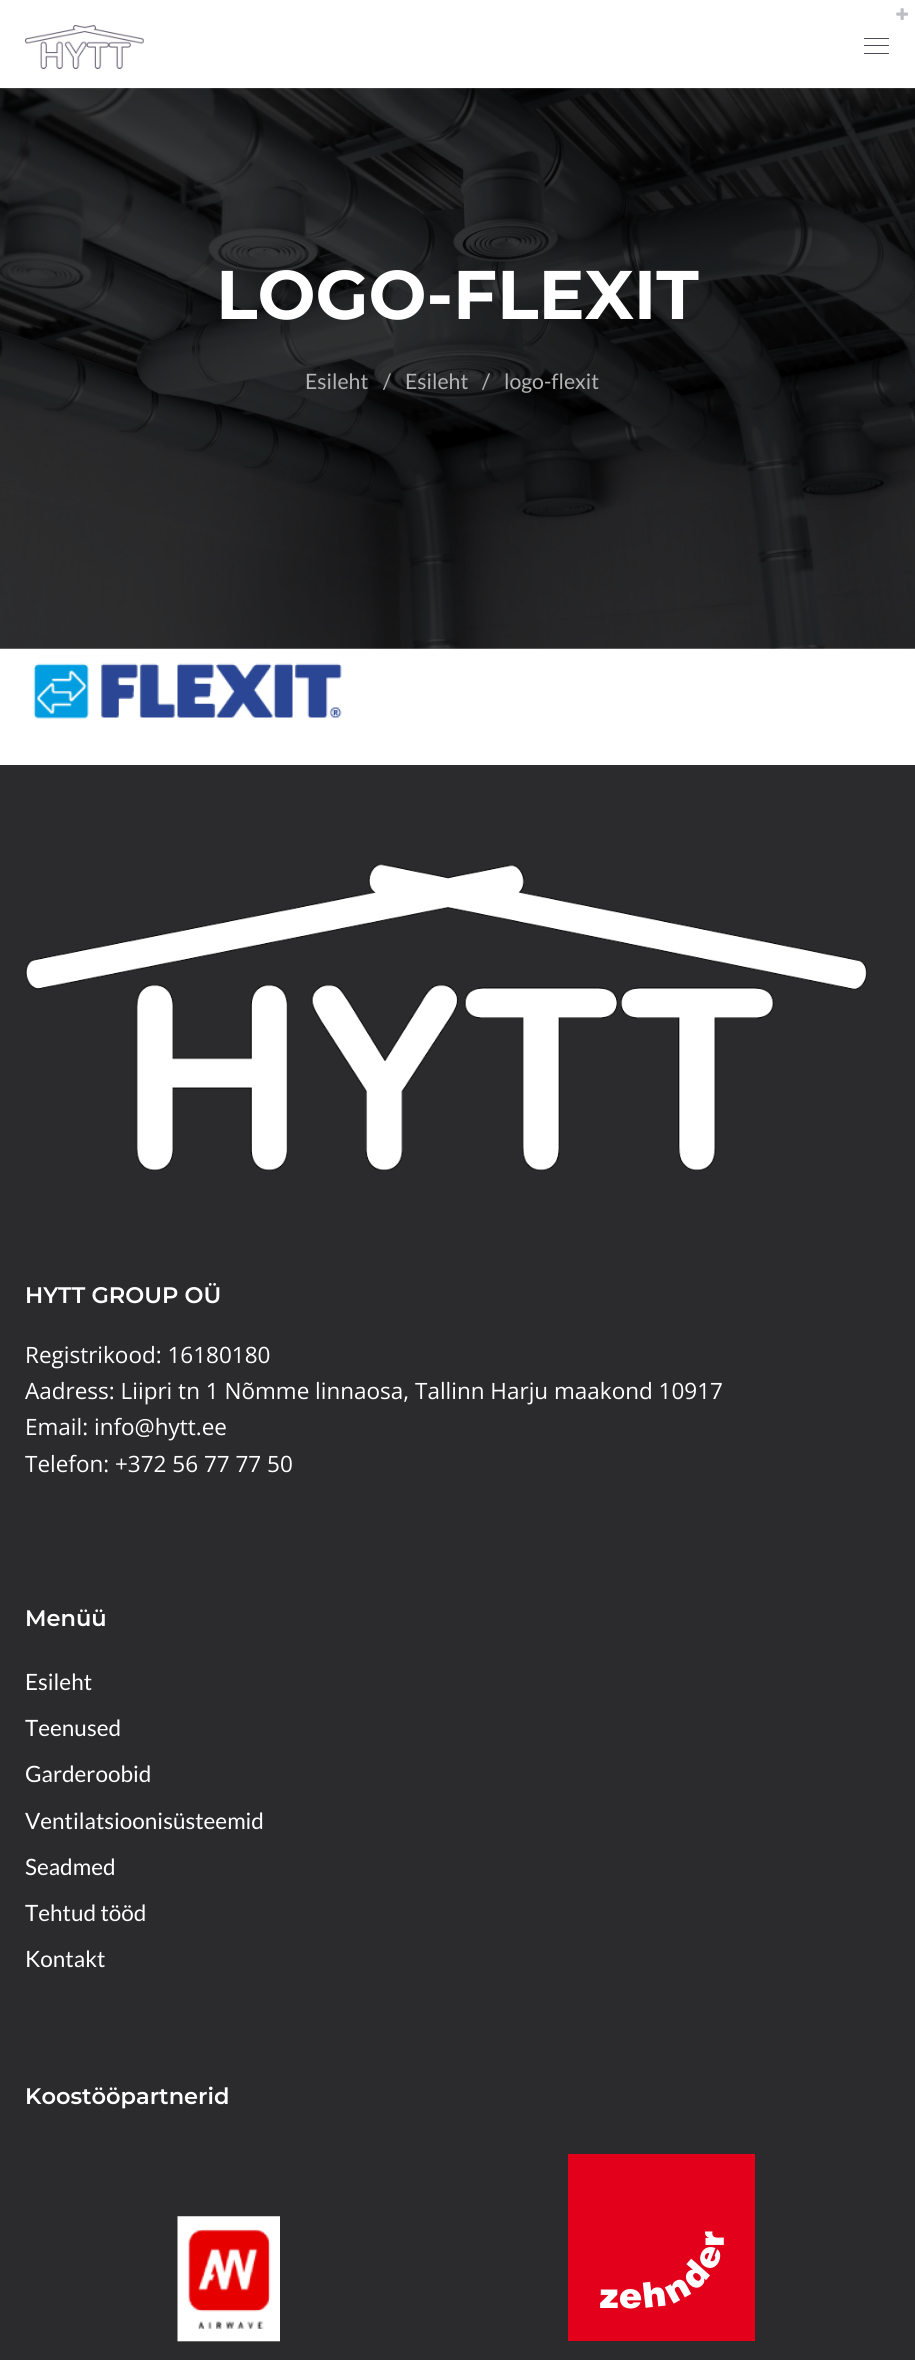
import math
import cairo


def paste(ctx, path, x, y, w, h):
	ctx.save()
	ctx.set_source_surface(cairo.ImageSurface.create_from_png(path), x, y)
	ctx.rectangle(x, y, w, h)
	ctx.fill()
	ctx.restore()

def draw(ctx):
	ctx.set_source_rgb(1, 1, 1)
	ctx.paint()
	paste(ctx, 'media/3.png', 0, 88, 915, 561)
	ctx.set_source_rgba(1, 1, 1, 0.1)
	ctx.rectangle(0, 88, 915, 1)
	ctx.fill()
	paste(ctx, 'media/1.png', 896, 8, 12, 12)
	paste(ctx, 'media/2.png', 25, 25, 119, 44)
	ctx.set_source_rgb(0.318, 0.286, 0.361)
	ctx.rectangle(864, 38, 25, 1)
	ctx.rectangle(864, 45, 25, 1)
	ctx.rectangle(864, 53, 25, 1)
	ctx.fill()
	ctx.select_font_face('Montserrat', cairo.FONT_SLANT_NORMAL, cairo.FONT_WEIGHT_BOLD)
	ctx.set_font_size(68.75)
	ctx.set_source_rgb(1, 1, 1)
	ctx.move_to(216, 319)
	ctx.show_text('LOGO-FLEXIT')
	ctx.select_font_face('Lato')
	ctx.set_font_size(21.25)
	ctx.set_source_rgb(0.702, 0.702, 0.702)
	for x, y, s in [
		(305, 389, 'Esileht'),
		(383, 389, '/'),
		(405, 389, 'Esileht'),
		(482, 389, '/'),
		(504, 389, 'logo-flexit'),
	]:
		ctx.move_to(x, y)
		ctx.show_text(s)
	paste(ctx, 'media/4.png', 33, 663, 309, 56)
	ctx.set_source_rgb(0.169, 0.165, 0.173)
	ctx.rectangle(0, 765, 915, 1595)
	ctx.fill()
	paste(ctx, 'media/5.png', 25, 863, 843, 308)
	ctx.select_font_face('Montserrat SemiBold')
	ctx.set_font_size(22.5)
	ctx.set_source_rgb(1, 1, 1)
	ctx.move_to(25, 1303)
	ctx.show_text('HYTT GROUP OÜ')
	ctx.select_font_face('Open Sans')
	for x, y, s in [
		(25, 1363, 'Registrikood: 16180180'),
		(25, 1399, 'Aadress: Liipri tn 1 Nõmme linnaosa, Tallinn Harju maakond 10917'),
		(25, 1435, 'Email: info@hytt.ee'),
		(25, 1472, 'Telefon: +372 56 77 77 50'),
	]:
		ctx.move_to(x, y)
		ctx.show_text(s)
	ctx.select_font_face('Montserrat SemiBold')
	ctx.move_to(25, 1626)
	ctx.show_text('Menüü')
	ctx.select_font_face('Lato')
	for x, y, s in [
		(25, 1690, 'Esileht'),
		(25, 1736, 'Teenused'),
		(25, 1782, 'Garderoobid'),
		(25, 1829, 'Ventilatsioonisüsteemid'),
		(25, 1875, 'Seadmed'),
		(25, 1921, 'Tehtud tööd'),
		(25, 1967, 'Kontakt'),
	]:
		ctx.move_to(x, y)
		ctx.show_text(s)
	ctx.select_font_face('Montserrat SemiBold')
	ctx.move_to(25, 2104)
	ctx.show_text('Koostööpartnerid')
	paste(ctx, 'media/6.png', 177, 2216, 103, 126)
	paste(ctx, 'media/7.png', 568, 2154, 187, 187)


surface = cairo.ImageSurface(cairo.FORMAT_RGB24, 915, 2360)
ctx = cairo.Context(surface)
options = cairo.FontOptions()
options.set_hint_metrics(cairo.HINT_METRICS_OFF)
options.set_hint_style(cairo.HINT_STYLE_NONE)
ctx.set_font_options(options)
ctx.set_miter_limit(4)
draw(ctx)
surface.write_to_png('image.png')
